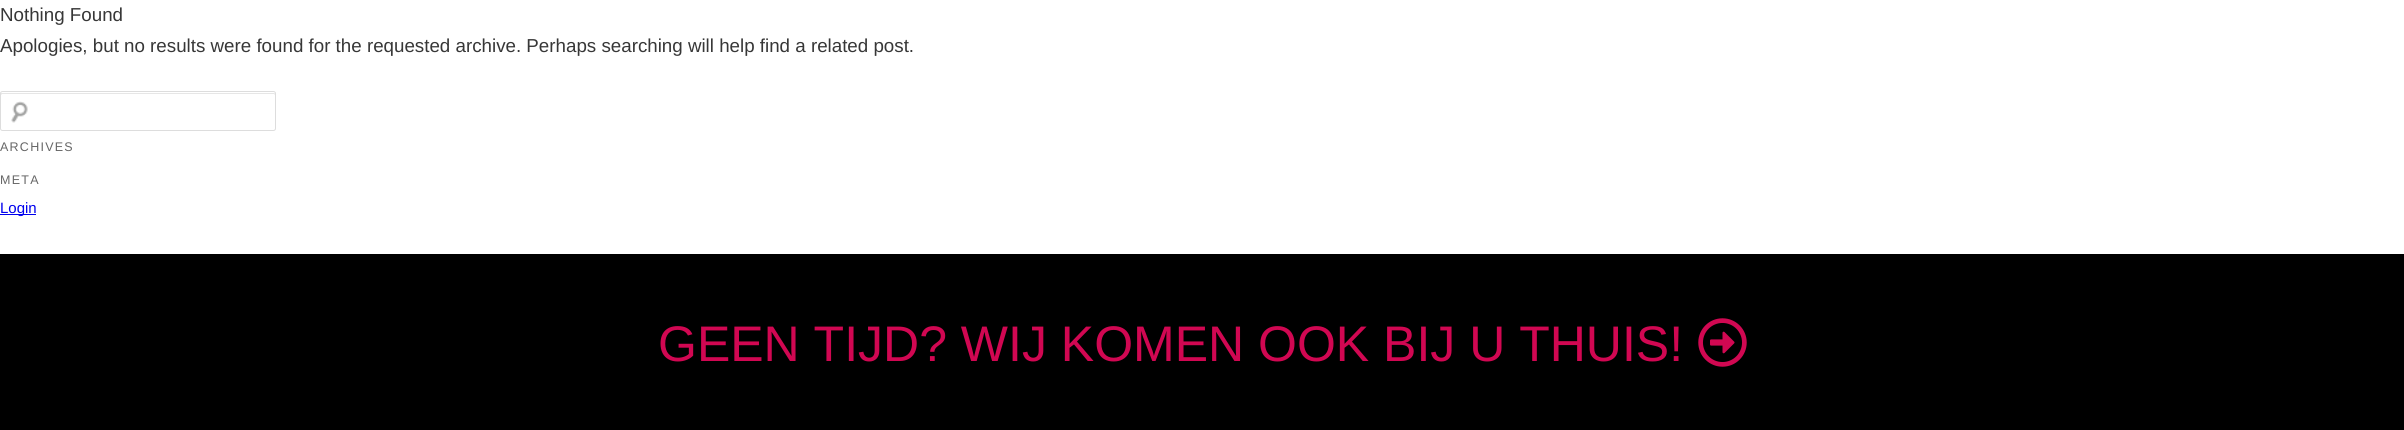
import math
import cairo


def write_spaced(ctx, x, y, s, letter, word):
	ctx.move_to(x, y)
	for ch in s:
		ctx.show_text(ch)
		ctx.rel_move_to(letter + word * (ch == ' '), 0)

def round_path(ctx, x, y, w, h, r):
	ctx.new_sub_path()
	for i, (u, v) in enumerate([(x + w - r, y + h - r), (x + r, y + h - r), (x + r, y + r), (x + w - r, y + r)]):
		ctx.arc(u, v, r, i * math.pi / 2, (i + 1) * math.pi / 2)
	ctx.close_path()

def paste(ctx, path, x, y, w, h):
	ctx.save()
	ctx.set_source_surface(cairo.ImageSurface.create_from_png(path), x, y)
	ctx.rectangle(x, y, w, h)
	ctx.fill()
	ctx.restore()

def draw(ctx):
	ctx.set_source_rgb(1, 1, 1)
	ctx.paint()
	ctx.select_font_face('Liberation Sans')
	ctx.set_font_size(18.75)
	ctx.set_source_rgb(0.216, 0.216, 0.216)
	ctx.move_to(0, 21)
	ctx.show_text('Nothing Found')
	ctx.move_to(0, 52)
	ctx.show_text('Apologies, but no results were found for the requested archive. Perhaps searching will help find a related post.')
	paste(ctx, 'media/1.png', 11, 101, 17, 22)
	ctx.set_source_rgb(0.902, 0.902, 0.902)
	ctx.new_path()
	ctx.move_to(2, 94)
	ctx.line_to(274, 94)
	ctx.line_to(275, 95)
	ctx.curve_to(275, 94, 275, 93, 274, 93)
	ctx.line_to(2, 93)
	ctx.line_to(1, 93)
	ctx.line_to(1, 95)
	ctx.close_path()
	ctx.fill()
	round_path(ctx, 0.5, 91.5, 275, 39, 2)
	ctx.set_source_rgb(0.867, 0.867, 0.867)
	ctx.set_line_width(1)
	ctx.stroke()
	ctx.set_font_size(12.5)
	ctx.set_source_rgb(0.4, 0.4, 0.4)
	write_spaced(ctx, 0, 151, 'ARCHIVES', 1.25, 0)
	write_spaced(ctx, 0, 184, 'META', 1.25, 0)
	ctx.set_source_rgb(0, 0, 0.933)
	ctx.rectangle(0, 214, 36, 1)
	ctx.fill()
	ctx.set_font_size(15)
	ctx.move_to(0, 213)
	ctx.show_text('Login')
	ctx.set_source_rgb(0, 0, 0)
	ctx.rectangle(0, 254, 2404, 176)
	ctx.fill()
	ctx.set_font_size(50)
	ctx.set_source_rgb(0.82, 0.031, 0.322)
	ctx.move_to(658, 361)
	ctx.show_text('GEEN TIJD? WIJ KOMEN OOK BIJ U THUIS!')
	paste(ctx, 'media/2.png', 1698, 318, 49, 49)


surface = cairo.ImageSurface(cairo.FORMAT_RGB24, 2404, 430)
ctx = cairo.Context(surface)
options = cairo.FontOptions()
options.set_hint_metrics(cairo.HINT_METRICS_OFF)
options.set_hint_style(cairo.HINT_STYLE_NONE)
ctx.set_font_options(options)
ctx.set_miter_limit(4)
draw(ctx)
surface.write_to_png('image.png')
